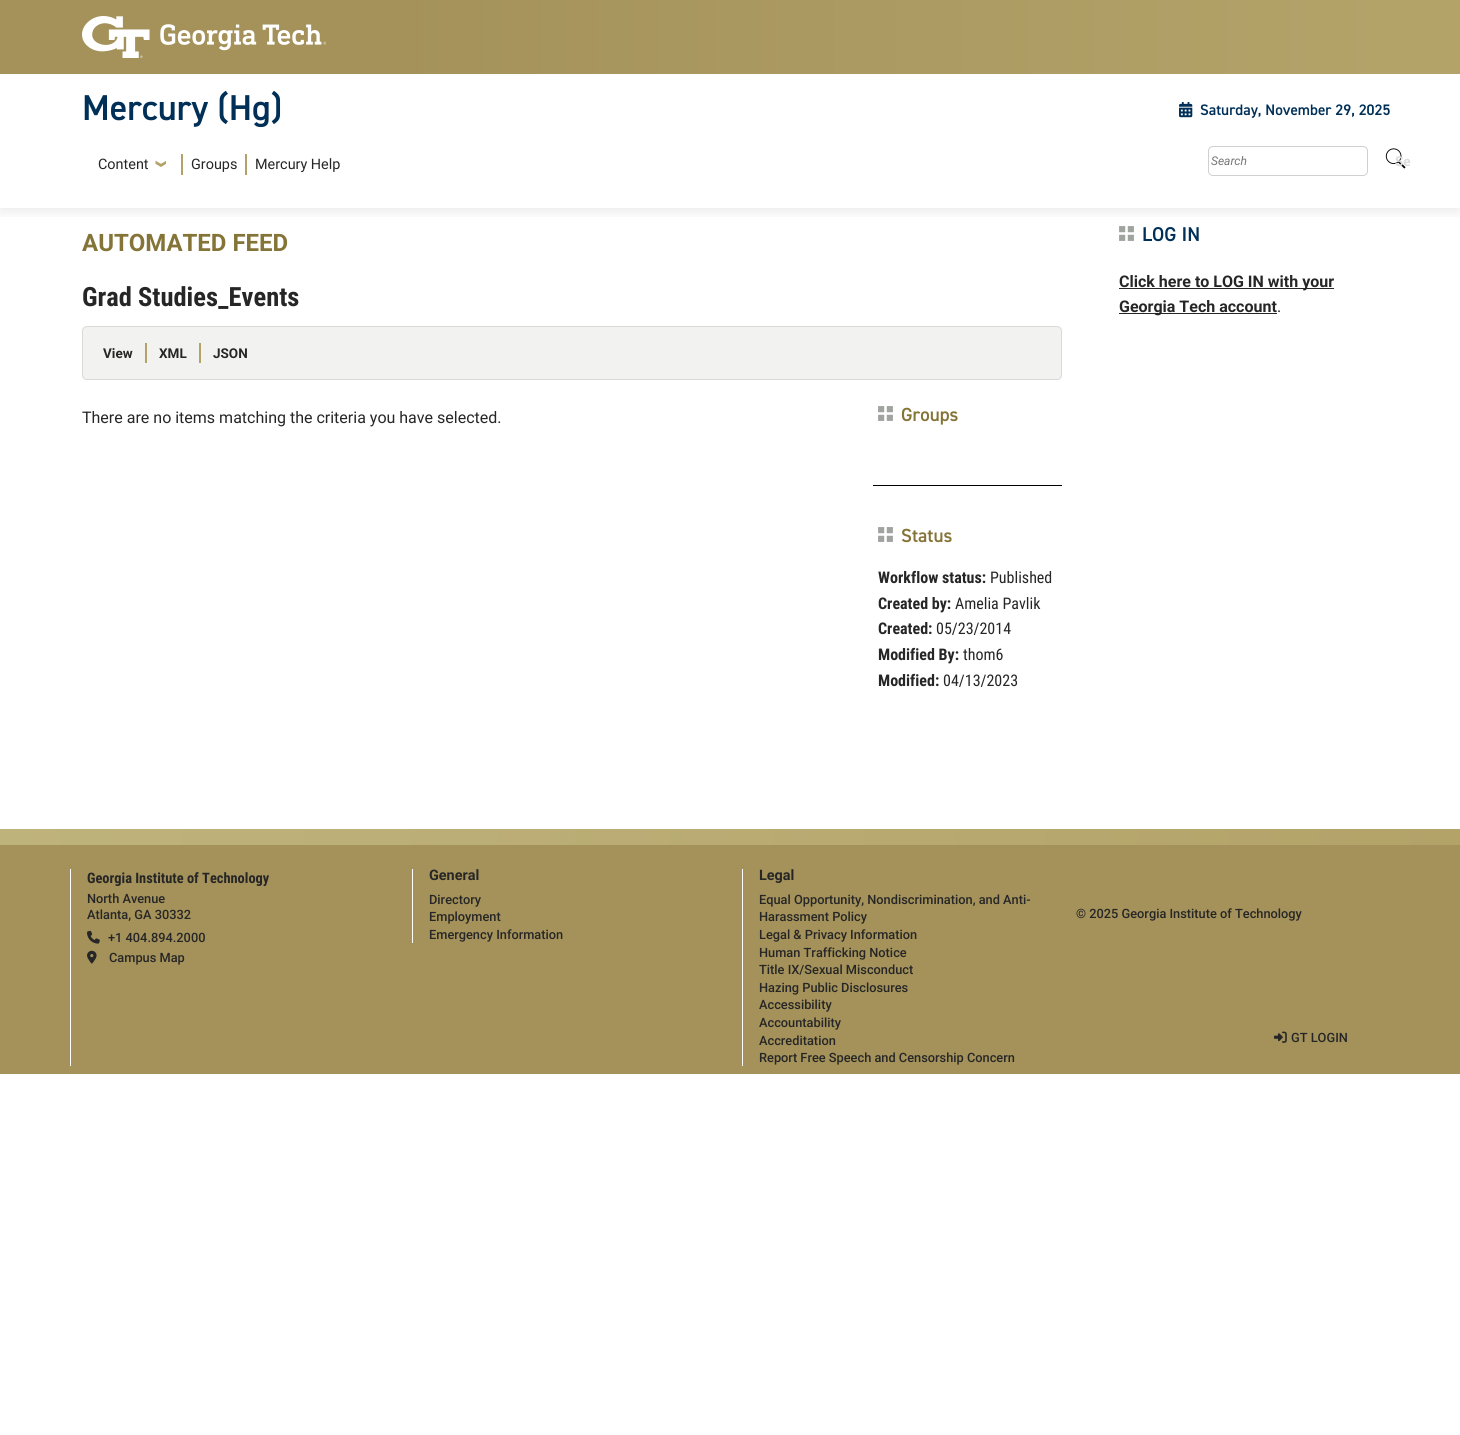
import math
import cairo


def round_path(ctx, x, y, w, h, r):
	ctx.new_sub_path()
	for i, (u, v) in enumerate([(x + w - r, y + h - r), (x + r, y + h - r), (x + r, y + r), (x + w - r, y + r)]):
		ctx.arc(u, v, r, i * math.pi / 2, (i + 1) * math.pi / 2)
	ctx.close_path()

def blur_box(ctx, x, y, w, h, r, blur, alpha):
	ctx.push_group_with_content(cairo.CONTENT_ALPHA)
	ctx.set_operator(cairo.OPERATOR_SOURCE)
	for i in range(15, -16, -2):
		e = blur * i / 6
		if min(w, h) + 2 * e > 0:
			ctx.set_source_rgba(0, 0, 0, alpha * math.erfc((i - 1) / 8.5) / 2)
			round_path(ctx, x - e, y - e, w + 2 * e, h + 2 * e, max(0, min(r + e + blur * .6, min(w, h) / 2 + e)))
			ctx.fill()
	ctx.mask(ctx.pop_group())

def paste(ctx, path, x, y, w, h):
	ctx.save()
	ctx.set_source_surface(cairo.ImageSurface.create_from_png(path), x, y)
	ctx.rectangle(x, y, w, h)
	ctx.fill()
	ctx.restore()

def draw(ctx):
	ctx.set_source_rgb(1, 1, 1)
	ctx.paint()
	ctx.save()
	ctx.rectangle(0, 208, 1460, 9)
	ctx.clip()
	ctx.set_source_rgb(0, 0, 0)
	blur_box(ctx, 0, 2, 1460, 208, 0, 8, 0.1)
	ctx.restore()
	ctx.set_source_rgb(0.643, 0.573, 0.353)
	ctx.rectangle(0, 0, 400, 74)
	ctx.fill()
	ctx.set_source_rgb(0.702, 0.639, 0.412)
	ctx.rectangle(1390, 0, 70, 74)
	ctx.fill()
	paste(ctx, 'media/1.png', 82, 16, 244, 42)
	gradient = cairo.LinearGradient(400, 37, 1390, 37)
	gradient.add_color_stop_rgba(0, 0.643, 0.573, 0.353, 1)
	gradient.add_color_stop_rgba(1, 0.702, 0.639, 0.412, 1)
	ctx.set_source(gradient)
	ctx.rectangle(400, 0, 990, 74)
	ctx.fill()
	ctx.select_font_face('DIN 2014 SemiBold')
	ctx.set_font_size(36)
	ctx.set_source_rgb(0, 0.188, 0.341)
	ctx.move_to(82, 120)
	ctx.show_text('Mercury (Hg)')
	paste(ctx, 'media/2.png', 1179, 102, 14, 16)
	ctx.set_font_size(15.25)
	ctx.move_to(1200, 115)
	ctx.show_text('Saturday, November 29, 2025')
	ctx.set_source_rgb(0.702, 0.639, 0.412)
	ctx.rectangle(181, 154, 2, 21)
	ctx.fill()
	ctx.select_font_face('Roboto')
	ctx.set_font_size(14.4)
	ctx.set_source_rgb(0.149, 0.149, 0.149)
	ctx.move_to(98, 169)
	ctx.show_text('Content')
	paste(ctx, 'media/3.png', 155, 160, 11, 7)
	ctx.set_source_rgb(0.702, 0.639, 0.412)
	ctx.rectangle(245, 154, 2, 21)
	ctx.fill()
	ctx.set_source_rgb(0.149, 0.149, 0.149)
	ctx.move_to(191, 169)
	ctx.show_text('Groups')
	ctx.move_to(255, 169)
	ctx.show_text('Mercury Help')
	round_path(ctx, 1208.5, 146.5, 159, 29, 4.5)
	ctx.set_source_rgb(0.816, 0.816, 0.816)
	ctx.set_line_width(1)
	ctx.stroke()
	ctx.select_font_face('Roboto', cairo.FONT_SLANT_ITALIC)
	ctx.set_font_size(12)
	ctx.set_source_rgb(0.459, 0.459, 0.459)
	ctx.move_to(1211, 165)
	ctx.show_text('Search')
	paste(ctx, 'media/4.png', 1385, 148, 21, 21)
	ctx.select_font_face('Roboto', cairo.FONT_SLANT_NORMAL, cairo.FONT_WEIGHT_BOLD)
	ctx.set_font_size(13.5)
	ctx.set_source_rgb(0.863, 0.863, 0.863)
	ctx.move_to(1395, 166)
	ctx.show_text('Se')
	ctx.set_font_size(24)
	ctx.set_source_rgb(0.522, 0.455, 0.216)
	ctx.move_to(82, 251)
	ctx.show_text('AUTOMATED FEED')
	ctx.select_font_face('Roboto Condensed', cairo.FONT_SLANT_NORMAL, cairo.FONT_WEIGHT_BOLD)
	ctx.set_font_size(26.5)
	ctx.set_source_rgb(0.149, 0.149, 0.149)
	ctx.move_to(82, 306)
	ctx.show_text('Grad Studies_Events')
	ctx.set_source_rgb(0.949, 0.953, 0.945)
	round_path(ctx, 82.5, 326.5, 979, 53, 4.5)
	ctx.fill_preserve()
	ctx.set_source_rgb(0.839, 0.859, 0.831)
	ctx.stroke()
	ctx.set_source_rgb(0.702, 0.639, 0.412)
	ctx.rectangle(145, 343, 2, 20)
	ctx.fill()
	ctx.select_font_face('Roboto', cairo.FONT_SLANT_NORMAL, cairo.FONT_WEIGHT_BOLD)
	ctx.set_font_size(13.5)
	ctx.set_source_rgb(0.149, 0.149, 0.149)
	ctx.move_to(103, 358)
	ctx.show_text('View')
	ctx.set_source_rgb(0.702, 0.639, 0.412)
	ctx.rectangle(199, 343, 2, 20)
	ctx.fill()
	ctx.set_source_rgb(0.149, 0.149, 0.149)
	ctx.move_to(159, 358)
	ctx.show_text('XML')
	ctx.move_to(213, 358)
	ctx.show_text('JSON')
	ctx.select_font_face('Roboto')
	ctx.set_font_size(16)
	ctx.move_to(82, 423)
	ctx.show_text('There are no items matching the criteria you have selected.')
	ctx.set_source_rgb(0, 0, 0)
	ctx.rectangle(873, 485, 189, 1)
	ctx.fill()
	paste(ctx, 'media/5.png', 878, 406, 15, 15)
	ctx.select_font_face('DIN 2014 SemiBold')
	ctx.set_font_size(19)
	ctx.set_source_rgb(0.522, 0.455, 0.216)
	ctx.move_to(901, 421)
	ctx.show_text('Groups')
	paste(ctx, 'media/5.png', 878, 527, 15, 15)
	ctx.move_to(901, 542)
	ctx.show_text('Status')
	ctx.select_font_face('Roboto Condensed', cairo.FONT_SLANT_NORMAL, cairo.FONT_WEIGHT_BOLD)
	ctx.set_font_size(16)
	ctx.set_source_rgb(0.149, 0.149, 0.149)
	ctx.move_to(878, 583)
	ctx.show_text('Workflow status:')
	ctx.select_font_face('Roboto Condensed')
	ctx.move_to(990, 583)
	ctx.show_text('Published')
	ctx.select_font_face('Roboto Condensed', cairo.FONT_SLANT_NORMAL, cairo.FONT_WEIGHT_BOLD)
	ctx.move_to(878, 609)
	ctx.show_text('Created by:')
	ctx.select_font_face('Roboto Condensed')
	ctx.move_to(955, 609)
	ctx.show_text('Amelia Pavlik')
	ctx.select_font_face('Roboto Condensed', cairo.FONT_SLANT_NORMAL, cairo.FONT_WEIGHT_BOLD)
	ctx.move_to(878, 634)
	ctx.show_text('Created:')
	ctx.select_font_face('Roboto Condensed')
	ctx.move_to(936, 634)
	ctx.show_text('05/23/2014')
	ctx.select_font_face('Roboto Condensed', cairo.FONT_SLANT_NORMAL, cairo.FONT_WEIGHT_BOLD)
	ctx.move_to(878, 660)
	ctx.show_text('Modified By:')
	ctx.select_font_face('Roboto Condensed')
	ctx.move_to(963, 660)
	ctx.show_text('thom6')
	ctx.select_font_face('Roboto Condensed', cairo.FONT_SLANT_NORMAL, cairo.FONT_WEIGHT_BOLD)
	ctx.move_to(878, 686)
	ctx.show_text('Modified:')
	ctx.select_font_face('Roboto Condensed')
	ctx.move_to(943, 686)
	ctx.show_text('04/13/2023')
	paste(ctx, 'media/5.png', 1119, 226, 15, 15)
	ctx.select_font_face('DIN 2014 SemiBold')
	ctx.set_font_size(20)
	ctx.set_source_rgb(0, 0.188, 0.341)
	ctx.move_to(1142, 241)
	ctx.show_text('LOG IN')
	ctx.set_source_rgb(0.149, 0.149, 0.149)
	ctx.rectangle(1119, 288, 215, 1)
	ctx.fill()
	ctx.select_font_face('Roboto', cairo.FONT_SLANT_NORMAL, cairo.FONT_WEIGHT_BOLD)
	ctx.set_font_size(16)
	ctx.move_to(1119, 287)
	ctx.show_text('Click here to LOG IN with your')
	ctx.rectangle(1119, 313, 158, 1)
	ctx.fill()
	ctx.move_to(1119, 312)
	ctx.show_text('Georgia Tech account')
	ctx.select_font_face('Roboto')
	ctx.move_to(1277, 312)
	ctx.show_text('.')
	gradient = cairo.LinearGradient(0, 837, 1460, 837)
	gradient.add_color_stop_rgba(0, 0.749, 0.702, 0.486, 1)
	gradient.add_color_stop_rgba(1, 0.702, 0.639, 0.412, 1)
	ctx.set_source(gradient)
	ctx.rectangle(0, 829, 1460, 16)
	ctx.fill()
	ctx.set_source_rgb(0.643, 0.573, 0.353)
	ctx.rectangle(0, 845, 1460, 229)
	ctx.fill()
	ctx.set_source_rgb(1, 1, 1)
	ctx.rectangle(70, 869, 1, 197)
	ctx.fill()
	ctx.select_font_face('Roboto Condensed', cairo.FONT_SLANT_NORMAL, cairo.FONT_WEIGHT_BOLD)
	ctx.set_font_size(14.4)
	ctx.set_source_rgb(0.149, 0.149, 0.149)
	ctx.move_to(87, 883)
	ctx.show_text('Georgia Institute of Technology')
	ctx.select_font_face('Roboto Medium')
	ctx.set_font_size(12.8)
	ctx.move_to(87, 903)
	ctx.show_text('North Avenue')
	ctx.move_to(87, 919)
	ctx.show_text('Atlanta, GA 30332')
	paste(ctx, 'media/6.png', 87, 930, 13, 14)
	ctx.move_to(108, 942)
	ctx.show_text('+1 404.894.2000')
	paste(ctx, 'media/7.png', 87, 950, 10, 14)
	ctx.move_to(109, 962)
	ctx.show_text('Campus Map')
	ctx.set_source_rgb(1, 1, 1)
	ctx.rectangle(412, 869, 1, 74)
	ctx.fill()
	ctx.select_font_face('Roboto', cairo.FONT_SLANT_NORMAL, cairo.FONT_WEIGHT_BOLD)
	ctx.set_font_size(14.4)
	ctx.set_source_rgb(0.149, 0.149, 0.149)
	ctx.move_to(429, 880)
	ctx.show_text('General')
	ctx.select_font_face('Roboto Medium')
	ctx.set_font_size(12.8)
	for x, y, s in [
		(429, 904, 'Directory'),
		(429, 921, 'Employment'),
		(429, 939, 'Emergency Information'),
	]:
		ctx.move_to(x, y)
		ctx.show_text(s)
	ctx.set_source_rgb(1, 1, 1)
	ctx.rectangle(742, 869, 1, 197)
	ctx.fill()
	ctx.select_font_face('Roboto', cairo.FONT_SLANT_NORMAL, cairo.FONT_WEIGHT_BOLD)
	ctx.set_font_size(14.4)
	ctx.set_source_rgb(0.149, 0.149, 0.149)
	ctx.move_to(759, 880)
	ctx.show_text('Legal')
	ctx.select_font_face('Roboto Medium')
	ctx.set_font_size(12.8)
	for x, y, s in [
		(759, 904, 'Equal Opportunity, Nondiscrimination, and Anti-'),
		(759, 921, 'Harassment Policy'),
		(759, 939, 'Legal & Privacy Information'),
		(759, 957, 'Human Trafficking Notice'),
		(759, 974, 'Title IX/Sexual Misconduct'),
		(759, 992, 'Hazing Public Disclosures'),
		(759, 1009, 'Accessibility'),
		(759, 1027, 'Accountability'),
		(759, 1045, 'Accreditation'),
		(759, 1062, 'Report Free Speech and Censorship Concern'),
		(1076, 918, '© 2025 Georgia Institute of Technology'),
	]:
		ctx.move_to(x, y)
		ctx.show_text(s)
	paste(ctx, 'media/8.png', 1274, 1031, 13, 12)
	ctx.move_to(1291, 1042)
	ctx.show_text('GT LOGIN')


surface = cairo.ImageSurface(cairo.FORMAT_RGB24, 1460, 1435)
ctx = cairo.Context(surface)
options = cairo.FontOptions()
options.set_hint_metrics(cairo.HINT_METRICS_OFF)
options.set_hint_style(cairo.HINT_STYLE_NONE)
ctx.set_font_options(options)
ctx.set_miter_limit(4)
draw(ctx)
surface.write_to_png('image.png')
